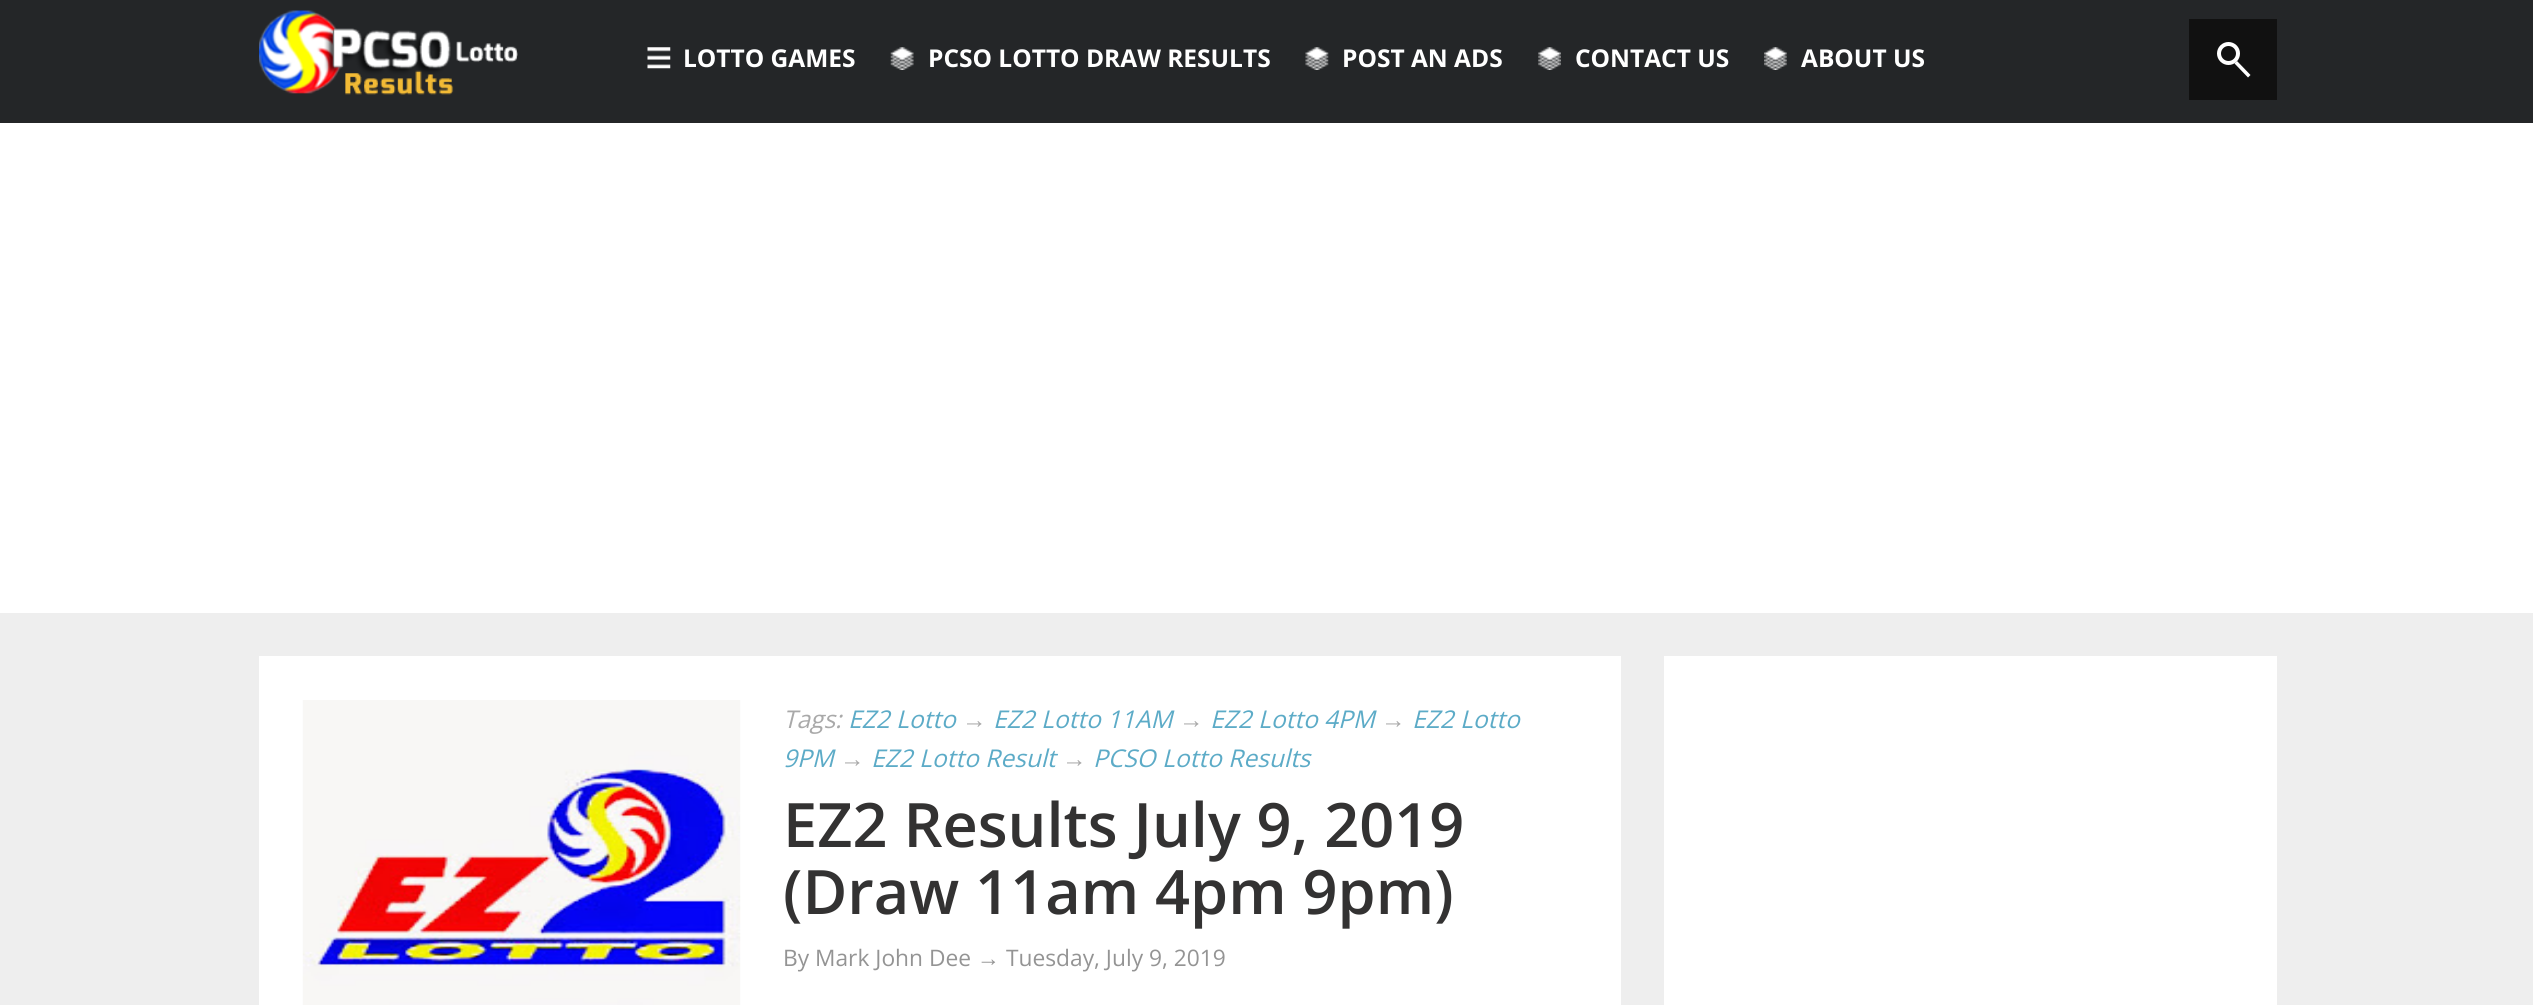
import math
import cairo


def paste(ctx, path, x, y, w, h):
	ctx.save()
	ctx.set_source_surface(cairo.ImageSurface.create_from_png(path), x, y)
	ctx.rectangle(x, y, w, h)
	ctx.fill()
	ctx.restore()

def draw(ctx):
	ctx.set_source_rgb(0.933, 0.933, 0.933)
	ctx.paint()
	ctx.set_source_rgb(0.141, 0.149, 0.157)
	ctx.rectangle(0, 0, 2533, 123)
	ctx.fill()
	paste(ctx, 'media/1.png', 259, 10, 259, 85)
	paste(ctx, 'media/2.png', 647, 47, 24, 22)
	ctx.select_font_face('Open Sans', cairo.FONT_SLANT_NORMAL, cairo.FONT_WEIGHT_BOLD)
	ctx.set_font_size(24.5)
	ctx.set_source_rgb(1, 1, 1)
	ctx.move_to(683, 67)
	ctx.show_text('LOTTO GAMES')
	paste(ctx, 'media/3.png', 890, 47, 24, 23)
	ctx.move_to(928, 67)
	ctx.show_text('PCSO LOTTO DRAW RESULTS')
	paste(ctx, 'media/4.png', 1305, 47, 24, 23)
	ctx.move_to(1342, 67)
	ctx.show_text('POST AN ADS')
	paste(ctx, 'media/5.png', 1538, 47, 23, 23)
	ctx.move_to(1575, 67)
	ctx.show_text('CONTACT US')
	paste(ctx, 'media/6.png', 1764, 47, 23, 23)
	ctx.move_to(1801, 67)
	ctx.show_text('ABOUT US')
	ctx.set_source_rgb(0.067, 0.067, 0.067)
	ctx.rectangle(2189, 19, 88, 81)
	ctx.fill()
	ctx.arc(2228.5, 53.5, 9.5, 0, 2 * math.pi)
	ctx.set_source_rgb(1, 1, 1)
	ctx.set_line_width(4)
	ctx.stroke()
	ctx.new_path()
	ctx.move_to(2234.5, 63.5)
	ctx.line_to(2237, 61)
	ctx.line_to(2250.5, 75)
	ctx.line_to(2248, 77.5)
	ctx.close_path()
	ctx.fill()
	ctx.rectangle(0, 123, 2533, 490)
	ctx.fill()
	ctx.rectangle(259, 656, 1362, 349)
	ctx.fill()
	paste(ctx, 'media/7.png', 302, 700, 439, 305)
	ctx.select_font_face('Open Sans', cairo.FONT_SLANT_ITALIC)
	ctx.set_source_rgb(0.663, 0.663, 0.663)
	ctx.move_to(783, 728)
	ctx.show_text('Tags:')
	ctx.set_source_rgb(0.361, 0.671, 0.78)
	ctx.move_to(848, 728)
	ctx.show_text('EZ2 Lotto')
	ctx.select_font_face('Liberation Sans', cairo.FONT_SLANT_ITALIC)
	ctx.set_source_rgb(0.663, 0.663, 0.663)
	ctx.move_to(962, 728)
	ctx.show_text('→')
	ctx.select_font_face('Open Sans', cairo.FONT_SLANT_ITALIC)
	ctx.set_source_rgb(0.361, 0.671, 0.78)
	ctx.move_to(993, 728)
	ctx.show_text('EZ2 Lotto 11AM')
	ctx.select_font_face('Liberation Sans', cairo.FONT_SLANT_ITALIC)
	ctx.set_source_rgb(0.663, 0.663, 0.663)
	ctx.move_to(1179, 728)
	ctx.show_text('→')
	ctx.select_font_face('Open Sans', cairo.FONT_SLANT_ITALIC)
	ctx.set_source_rgb(0.361, 0.671, 0.78)
	ctx.move_to(1210, 728)
	ctx.show_text('EZ2 Lotto 4PM')
	ctx.select_font_face('Liberation Sans', cairo.FONT_SLANT_ITALIC)
	ctx.set_source_rgb(0.663, 0.663, 0.663)
	ctx.move_to(1381, 728)
	ctx.show_text('→')
	ctx.select_font_face('Open Sans', cairo.FONT_SLANT_ITALIC)
	ctx.set_source_rgb(0.361, 0.671, 0.78)
	ctx.move_to(1412, 728)
	ctx.show_text('EZ2 Lotto')
	ctx.move_to(783, 767)
	ctx.show_text('9PM')
	ctx.select_font_face('Liberation Sans', cairo.FONT_SLANT_ITALIC)
	ctx.set_source_rgb(0.663, 0.663, 0.663)
	ctx.move_to(840, 767)
	ctx.show_text('→')
	ctx.select_font_face('Open Sans', cairo.FONT_SLANT_ITALIC)
	ctx.set_source_rgb(0.361, 0.671, 0.78)
	ctx.move_to(871, 767)
	ctx.show_text('EZ2 Lotto Result')
	ctx.select_font_face('Liberation Sans', cairo.FONT_SLANT_ITALIC)
	ctx.set_source_rgb(0.663, 0.663, 0.663)
	ctx.move_to(1062, 767)
	ctx.show_text('→')
	ctx.select_font_face('Open Sans', cairo.FONT_SLANT_ITALIC)
	ctx.set_source_rgb(0.361, 0.671, 0.78)
	ctx.move_to(1093, 767)
	ctx.show_text('PCSO Lotto Results')
	ctx.select_font_face('Open Sans SemiBold')
	ctx.set_font_size(61.25)
	ctx.set_source_rgb(0.2, 0.196, 0.196)
	ctx.move_to(783, 847)
	ctx.show_text('EZ2 Results July 9, 2019')
	ctx.move_to(783, 914)
	ctx.show_text('(Draw 11am 4pm 9pm)')
	ctx.select_font_face('Open Sans')
	ctx.set_font_size(22.75)
	ctx.set_source_rgb(0.58, 0.58, 0.58)
	ctx.move_to(783, 966)
	ctx.show_text('By Mark John Dee')
	ctx.select_font_face('Liberation Sans')
	ctx.move_to(977, 966)
	ctx.show_text('→')
	ctx.select_font_face('Open Sans')
	ctx.move_to(1006, 966)
	ctx.show_text('Tuesday, July 9, 2019')
	ctx.set_source_rgb(1, 1, 1)
	ctx.rectangle(1664, 656, 613, 349)
	ctx.fill()


surface = cairo.ImageSurface(cairo.FORMAT_RGB24, 2533, 1005)
ctx = cairo.Context(surface)
options = cairo.FontOptions()
options.set_hint_metrics(cairo.HINT_METRICS_OFF)
options.set_hint_style(cairo.HINT_STYLE_NONE)
ctx.set_font_options(options)
ctx.set_miter_limit(4)
draw(ctx)
surface.write_to_png('image.png')
